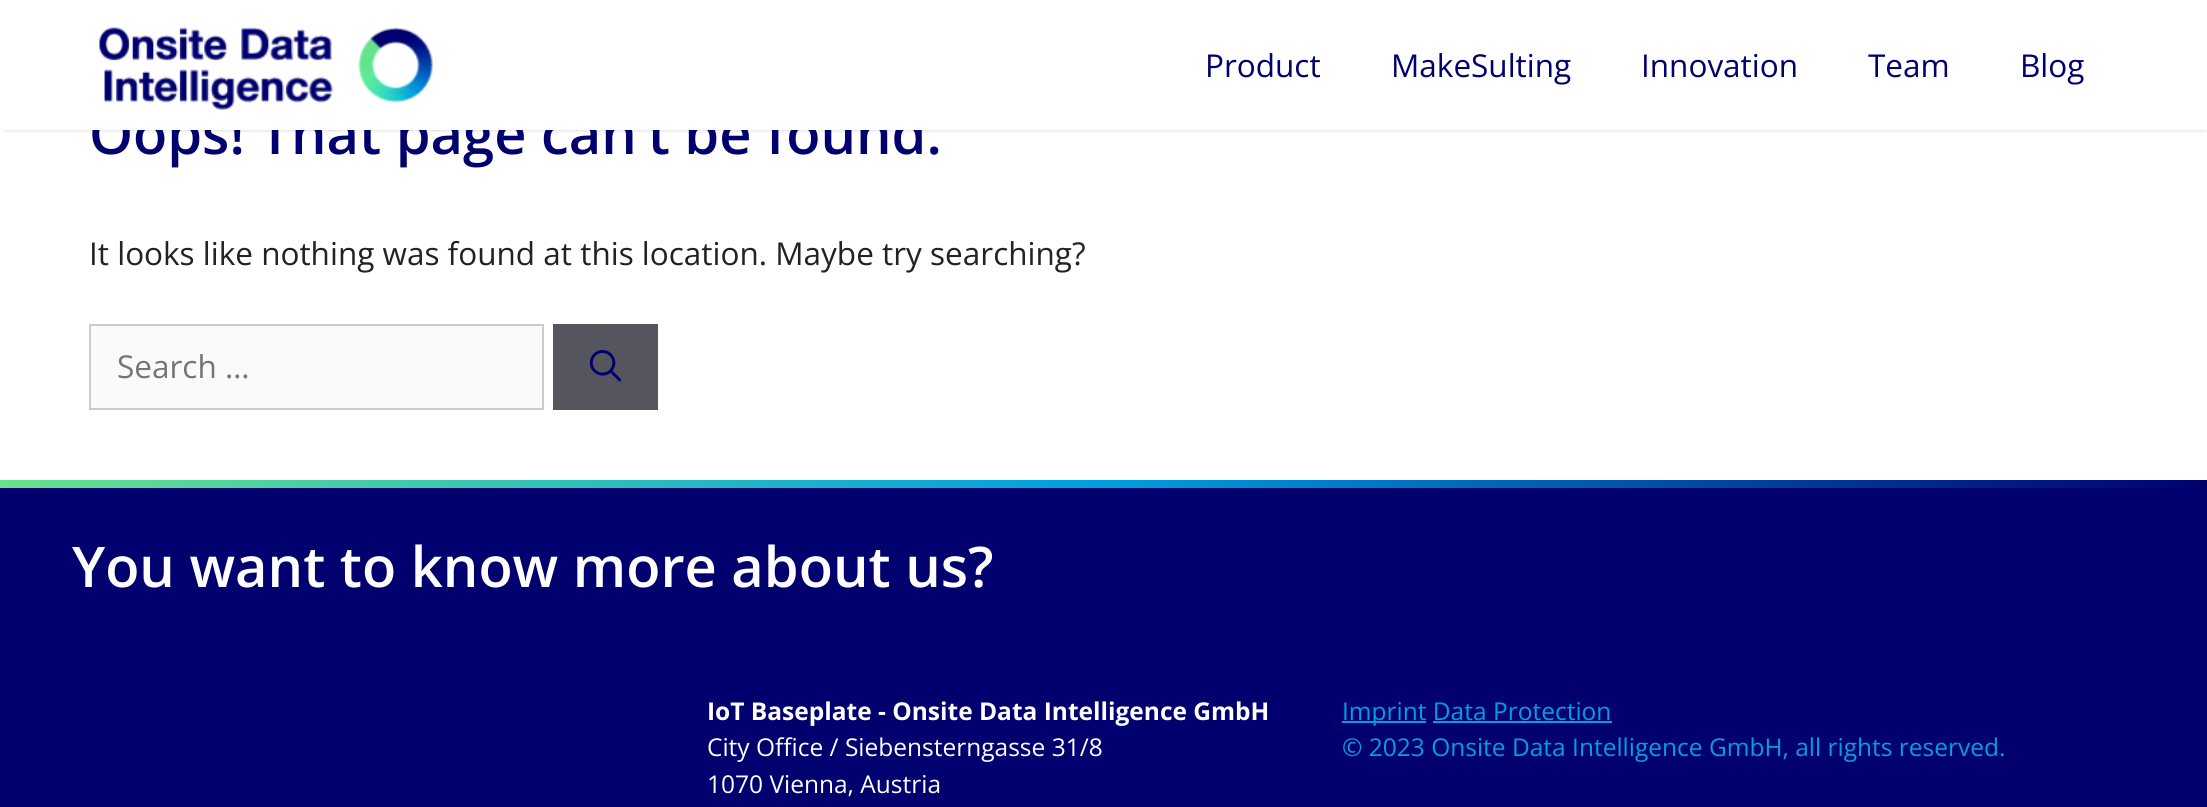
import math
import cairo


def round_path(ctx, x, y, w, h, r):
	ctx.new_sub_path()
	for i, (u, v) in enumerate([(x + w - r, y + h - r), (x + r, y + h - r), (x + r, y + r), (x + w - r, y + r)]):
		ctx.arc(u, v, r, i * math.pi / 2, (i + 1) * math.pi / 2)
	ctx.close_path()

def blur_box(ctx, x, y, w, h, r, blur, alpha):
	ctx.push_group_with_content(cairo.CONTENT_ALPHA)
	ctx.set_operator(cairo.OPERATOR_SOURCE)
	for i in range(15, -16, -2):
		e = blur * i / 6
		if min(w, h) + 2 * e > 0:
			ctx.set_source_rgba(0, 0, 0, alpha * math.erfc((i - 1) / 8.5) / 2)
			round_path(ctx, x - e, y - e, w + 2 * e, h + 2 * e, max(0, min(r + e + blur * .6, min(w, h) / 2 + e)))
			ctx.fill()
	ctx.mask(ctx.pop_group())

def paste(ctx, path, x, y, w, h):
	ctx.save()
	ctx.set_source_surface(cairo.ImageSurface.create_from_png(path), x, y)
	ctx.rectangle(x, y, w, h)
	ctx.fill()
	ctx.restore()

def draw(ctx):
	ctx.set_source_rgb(1, 1, 1)
	ctx.paint()
	ctx.set_source_rgb(0, 0, 0)
	blur_box(ctx, 4, 7, 2201, 123, 0, 2, 0.2)
	ctx.select_font_face('Open Sans SemiBold')
	ctx.set_font_size(56)
	ctx.set_source_rgb(0, 0, 0.435)
	ctx.move_to(89, 154)
	ctx.show_text('Oops! That page can’t be found.')
	ctx.set_source_rgb(1, 1, 1)
	ctx.rectangle(1, 4, 2206, 126)
	ctx.fill()
	paste(ctx, 'media/1.png', 99, 26, 334, 84)
	ctx.select_font_face('Open Sans')
	ctx.set_font_size(31.5)
	ctx.set_source_rgb(0, 0, 0.435)
	for x, y, s in [
		(1205, 77, 'Product'),
		(1391, 77, 'MakeSulting'),
		(1641, 77, 'Innovation'),
		(1868, 77, 'Team'),
		(2020, 77, 'Blog'),
	]:
		ctx.move_to(x, y)
		ctx.show_text(s)
	ctx.set_source_rgb(0.133, 0.133, 0.133)
	ctx.move_to(89, 265)
	ctx.show_text('It looks like nothing was found at this location. Maybe try searching?')
	ctx.set_source_rgb(0.98, 0.98, 0.98)
	ctx.rectangle(90, 325, 453, 84)
	ctx.fill_preserve()
	ctx.set_source_rgb(0.8, 0.8, 0.8)
	ctx.stroke()
	ctx.set_source_rgb(0.459, 0.459, 0.459)
	ctx.move_to(117, 378)
	ctx.show_text('Search …')
	ctx.set_source_rgb(0.333, 0.333, 0.369)
	ctx.rectangle(553, 324, 105, 86)
	ctx.fill()
	paste(ctx, 'media/2.png', 590, 350, 31, 32)
	gradient = cairo.LinearGradient(0, 484, 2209, 484)
	gradient.add_color_stop_rgba(0, 0.4, 0.886, 0.545, 1)
	gradient.add_color_stop_rgba(0.5, 0, 0.62, 0.886, 1)
	gradient.add_color_stop_rgba(1, 0, 0, 0.435, 1)
	ctx.set_source(gradient)
	ctx.rectangle(0, 480, 2207, 8)
	ctx.fill()
	ctx.set_source_rgb(0, 0, 0.435)
	ctx.rectangle(0, 488, 2207, 319)
	ctx.fill()
	ctx.select_font_face('Open Sans SemiBold')
	ctx.set_font_size(56)
	ctx.set_source_rgb(1, 1, 1)
	ctx.move_to(72, 587)
	ctx.show_text('You want to know more about us?')
	ctx.select_font_face('Open Sans', cairo.FONT_SLANT_NORMAL, cairo.FONT_WEIGHT_BOLD)
	ctx.set_font_size(24.5)
	ctx.move_to(707, 720)
	ctx.show_text('IoT Baseplate - Onsite Data Intelligence GmbH')
	ctx.select_font_face('Open Sans')
	ctx.move_to(707, 756)
	ctx.show_text('City Office / Siebensterngasse 31/8')
	ctx.move_to(707, 793)
	ctx.show_text('1070 Vienna, Austria')
	ctx.set_source_rgb(0, 0.62, 0.886)
	ctx.rectangle(1342, 721, 84, 2)
	ctx.fill()
	ctx.move_to(1342, 720)
	ctx.show_text('Imprint Data Protection')
	ctx.rectangle(1433, 721, 179, 2)
	ctx.fill()
	ctx.move_to(1342, 756)
	ctx.show_text('© 2023 Onsite Data Intelligence GmbH, all rights reserved.')


surface = cairo.ImageSurface(cairo.FORMAT_RGB24, 2207, 807)
ctx = cairo.Context(surface)
options = cairo.FontOptions()
options.set_hint_metrics(cairo.HINT_METRICS_OFF)
options.set_hint_style(cairo.HINT_STYLE_NONE)
ctx.set_font_options(options)
ctx.set_miter_limit(4)
draw(ctx)
surface.write_to_png('image.png')
